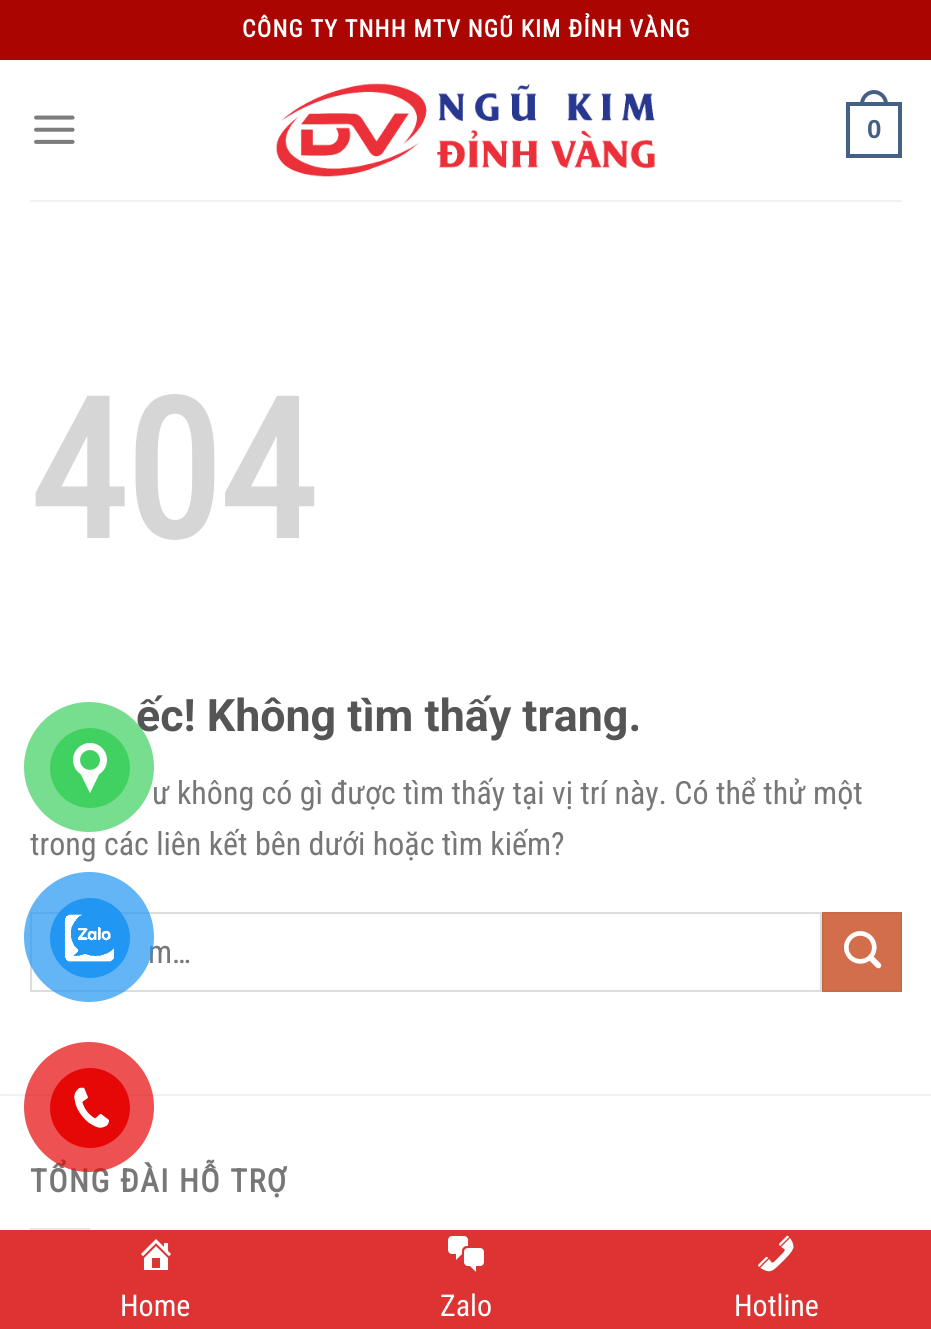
import math
import cairo


def write_spaced(ctx, x, y, s, letter, word):
	ctx.move_to(x, y)
	for ch in s:
		ctx.show_text(ch)
		ctx.rel_move_to(letter + word * (ch == ' '), 0)

def paste(ctx, path, x, y, w, h):
	ctx.save()
	ctx.set_source_surface(cairo.ImageSurface.create_from_png(path), x, y)
	ctx.rectangle(x, y, w, h)
	ctx.fill()
	ctx.restore()

def draw(ctx):
	ctx.set_source_rgb(1, 1, 1)
	ctx.paint()
	ctx.set_source_rgb(0.667, 0.02, 0)
	ctx.rectangle(0, 0, 931, 60)
	ctx.fill()
	ctx.select_font_face('Roboto Condensed', cairo.FONT_SLANT_NORMAL, cairo.FONT_WEIGHT_BOLD)
	ctx.set_font_size(24)
	ctx.set_source_rgb(1, 1, 1)
	write_spaced(ctx, 242, 37, 'CÔNG TY TNHH MTV NGŨ KIM ĐỈNH VÀNG', 1.2, 0)
	paste(ctx, 'media/1.png', 34, 115, 41, 29)
	paste(ctx, 'media/2.png', 276, 83, 379, 94)
	ctx.rectangle(848, 104, 52, 52)
	ctx.set_source_rgb(0.267, 0.376, 0.518)
	ctx.set_line_width(4)
	ctx.stroke()
	ctx.set_fill_rule(cairo.FILL_RULE_EVEN_ODD)
	ctx.new_path()
	ctx.move_to(874, 90)
	ctx.curve_to(881.5, 90, 888, 96.5, 888, 104)
	ctx.line_to(888, 106)
	ctx.line_to(860, 106)
	ctx.line_to(860, 104)
	ctx.curve_to(860, 96.5, 866.5, 90, 874, 90)
	ctx.close_path()
	ctx.move_to(874, 94)
	ctx.curve_to(879.5, 94, 884, 98.5, 884, 104)
	ctx.line_to(884, 106)
	ctx.line_to(864, 106)
	ctx.line_to(864, 104)
	ctx.curve_to(864, 98.5, 868.5, 94, 874, 94)
	ctx.close_path()
	ctx.fill()
	ctx.select_font_face('Liberation Sans', cairo.FONT_SLANT_NORMAL, cairo.FONT_WEIGHT_BOLD)
	ctx.set_font_size(26)
	ctx.move_to(867, 138)
	ctx.show_text('0')
	ctx.set_source_rgb(0.945, 0.945, 0.945)
	ctx.rectangle(30, 200, 872, 2)
	ctx.fill()
	ctx.select_font_face('Roboto Condensed', cairo.FONT_SLANT_NORMAL, cairo.FONT_WEIGHT_BOLD)
	ctx.set_font_size(192)
	ctx.set_source_rgb(0.839, 0.839, 0.839)
	ctx.move_to(30, 538)
	ctx.show_text('404')
	ctx.select_font_face('Roboto', cairo.FONT_SLANT_NORMAL, cairo.FONT_WEIGHT_BOLD)
	ctx.set_font_size(44.75)
	ctx.set_source_rgb(0.333, 0.333, 0.333)
	ctx.move_to(136, 731)
	ctx.show_text('ếc! Không tìm thấy trang.')
	ctx.select_font_face('Roboto Condensed')
	ctx.set_font_size(32)
	ctx.set_source_rgb(0.467, 0.467, 0.467)
	ctx.move_to(152, 804)
	ctx.show_text('ư không có gì được tìm thấy tại vị trí này. Có thể thử một')
	ctx.move_to(30, 855)
	ctx.show_text('trong các liên kết bên dưới hoặc tìm kiếm?')
	ctx.rectangle(31, 913, 790, 78)
	ctx.set_source_rgb(0.867, 0.867, 0.867)
	ctx.set_line_width(2)
	ctx.stroke()
	ctx.set_source_rgb(0.467, 0.467, 0.467)
	ctx.move_to(148, 963)
	ctx.show_text('m…')
	ctx.set_source_rgb(0.824, 0.431, 0.294)
	ctx.rectangle(823, 913, 78, 78)
	ctx.fill_preserve()
	ctx.set_source_rgb(0.784, 0.412, 0.278)
	ctx.stroke()
	paste(ctx, 'media/3.png', 844, 931, 38, 38)
	ctx.set_source_rgb(0.949, 0.949, 0.949)
	ctx.rectangle(0, 1094, 931, 2)
	ctx.fill()
	ctx.select_font_face('Roboto Condensed', cairo.FONT_SLANT_NORMAL, cairo.FONT_WEIGHT_BOLD)
	ctx.set_source_rgb(0.467, 0.467, 0.467)
	write_spaced(ctx, 30, 1192, 'TỔNG ĐÀI HỖ TRỢ', 1.6, 0)
	ctx.set_source_rgb(0.902, 0.902, 0.902)
	ctx.rectangle(30, 1228, 60, 2)
	ctx.fill()
	ctx.set_source_rgba(0.251, 0.82, 0.376, 0.7)
	ctx.arc(89, 767, 65, 0, 2 * math.pi)
	ctx.fill()
	ctx.set_source_rgb(0.251, 0.82, 0.376)
	ctx.arc(90, 768, 40, 0, 2 * math.pi)
	ctx.fill()
	paste(ctx, 'media/4.png', 73, 743, 34, 50)
	ctx.set_source_rgba(0.129, 0.588, 0.953, 0.7)
	ctx.arc(89, 937, 65, 0, 2 * math.pi)
	ctx.fill()
	ctx.set_source_rgb(0.129, 0.588, 0.953)
	ctx.arc(90, 938, 40, 0, 2 * math.pi)
	ctx.fill()
	paste(ctx, 'media/5.png', 64, 914, 50, 48)
	ctx.set_source_rgba(0.902, 0.031, 0.031, 0.7)
	ctx.arc(89, 1107, 65, 0, 2 * math.pi)
	ctx.fill()
	ctx.set_source_rgb(0.902, 0.031, 0.031)
	ctx.arc(90, 1108, 40, 0, 2 * math.pi)
	ctx.fill()
	paste(ctx, 'media/6.png', 74, 1087, 35, 41)
	ctx.set_source_rgb(0.867, 0.2, 0.2)
	ctx.rectangle(0, 1230, 931, 99)
	ctx.fill()
	paste(ctx, 'media/7.png', 141, 1239, 30, 31)
	ctx.select_font_face('Roboto Condensed')
	ctx.set_font_size(30)
	ctx.set_source_rgb(1, 1, 1)
	ctx.move_to(120, 1316)
	ctx.show_text('Home')
	paste(ctx, 'media/8.png', 448, 1236, 36, 36)
	ctx.move_to(440, 1316)
	ctx.show_text('Zalo')
	paste(ctx, 'media/9.png', 758, 1235, 36, 37)
	ctx.move_to(734, 1316)
	ctx.show_text('Hotline')


surface = cairo.ImageSurface(cairo.FORMAT_RGB24, 931, 1329)
ctx = cairo.Context(surface)
options = cairo.FontOptions()
options.set_hint_metrics(cairo.HINT_METRICS_OFF)
options.set_hint_style(cairo.HINT_STYLE_NONE)
ctx.set_font_options(options)
ctx.set_miter_limit(4)
draw(ctx)
surface.write_to_png('image.png')
